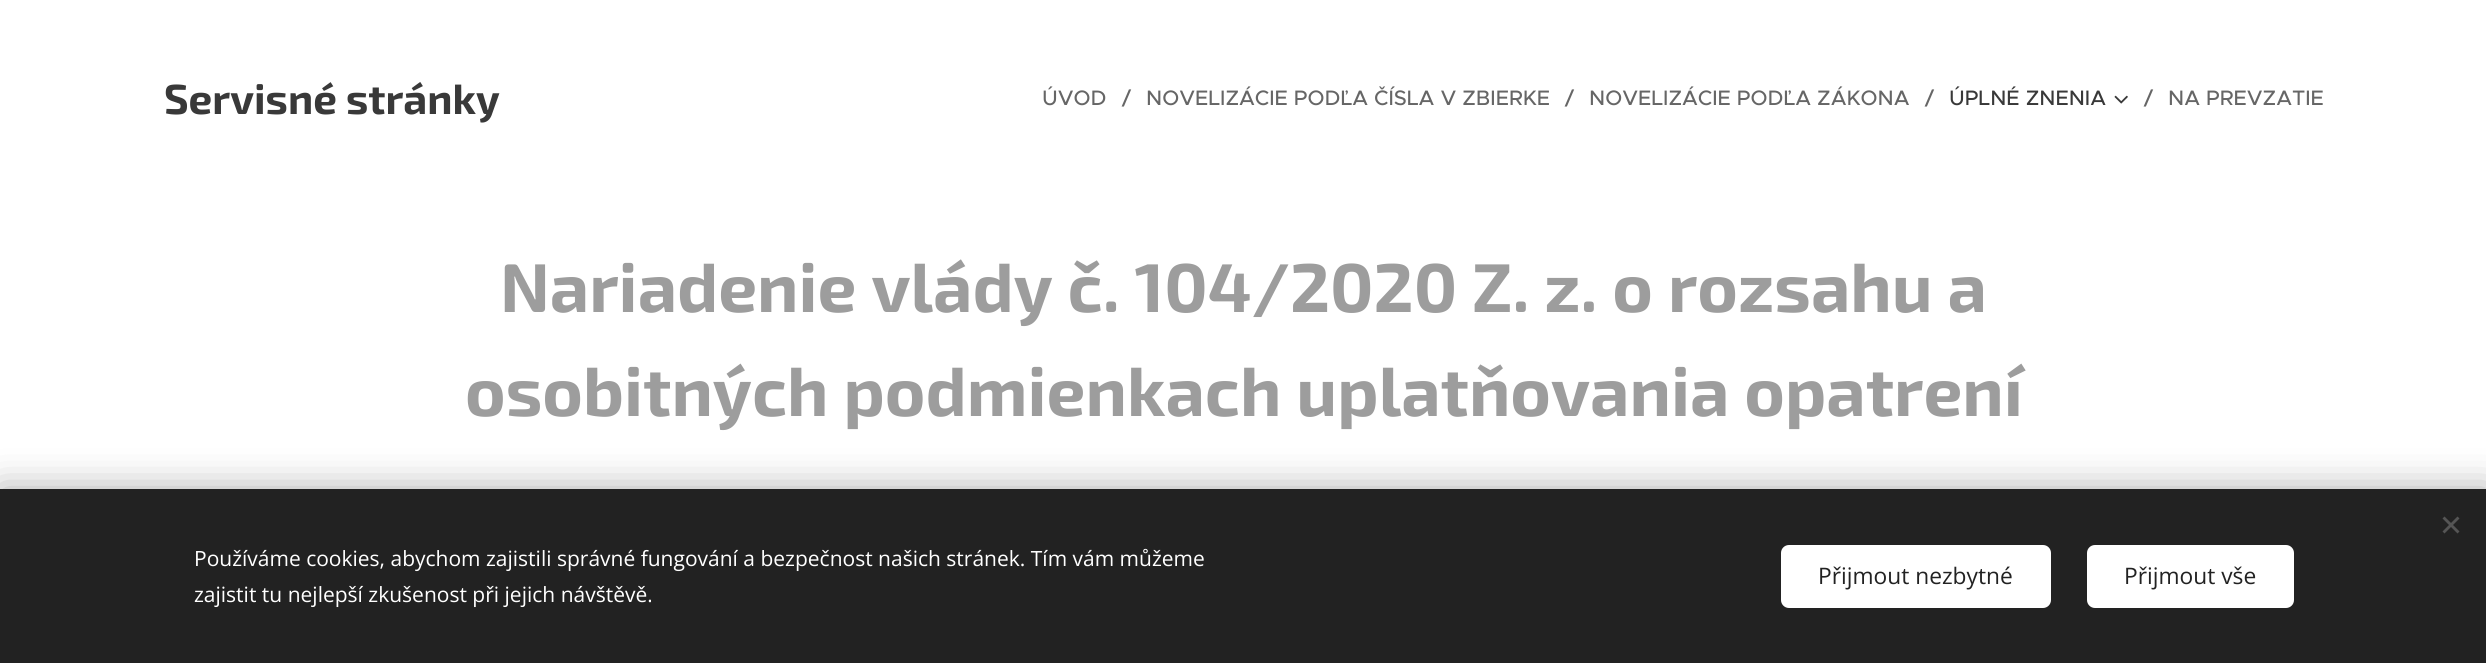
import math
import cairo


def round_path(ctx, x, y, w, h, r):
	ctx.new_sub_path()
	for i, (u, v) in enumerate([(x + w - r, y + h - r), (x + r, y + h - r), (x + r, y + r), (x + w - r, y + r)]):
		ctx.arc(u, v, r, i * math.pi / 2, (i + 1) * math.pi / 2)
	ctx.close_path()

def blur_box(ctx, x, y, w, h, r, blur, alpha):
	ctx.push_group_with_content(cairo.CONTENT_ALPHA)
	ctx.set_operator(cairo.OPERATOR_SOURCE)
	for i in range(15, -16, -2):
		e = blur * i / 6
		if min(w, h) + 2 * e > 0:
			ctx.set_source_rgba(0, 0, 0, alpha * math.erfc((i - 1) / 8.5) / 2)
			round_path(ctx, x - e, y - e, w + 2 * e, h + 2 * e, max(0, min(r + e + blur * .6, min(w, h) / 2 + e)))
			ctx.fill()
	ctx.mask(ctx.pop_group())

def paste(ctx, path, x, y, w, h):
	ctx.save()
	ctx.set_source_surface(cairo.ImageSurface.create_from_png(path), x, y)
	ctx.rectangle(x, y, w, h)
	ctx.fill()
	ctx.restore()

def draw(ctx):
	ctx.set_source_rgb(1, 1, 1)
	ctx.paint()
	ctx.select_font_face('Exo 2', cairo.FONT_SLANT_NORMAL, cairo.FONT_WEIGHT_BOLD)
	ctx.set_font_size(42)
	ctx.set_source_rgb(0.224, 0.224, 0.224)
	ctx.move_to(164, 114)
	ctx.show_text('Servisné stránky')
	ctx.select_font_face('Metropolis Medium')
	ctx.set_font_size(21)
	ctx.set_source_rgb(0.4, 0.4, 0.4)
	for x, y, s in [
		(1042, 105, 'ÚVOD'),
		(1122, 105, '/'),
		(1146, 105, 'NOVELIZÁCIE PODĽA ČÍSLA V ZBIERKE'),
		(1565, 105, '/'),
		(1589, 105, 'NOVELIZÁCIE PODĽA ZÁKONA'),
		(1925, 105, '/'),
	]:
		ctx.move_to(x, y)
		ctx.show_text(s)
	ctx.set_source_rgb(0.224, 0.224, 0.224)
	ctx.move_to(1949, 105)
	ctx.show_text('ÚPLNÉ ZNENIA')
	ctx.set_source_rgb(0.4, 0.4, 0.4)
	ctx.move_to(2144, 105)
	ctx.show_text('/')
	paste(ctx, 'media/1.png', 2114, 95, 14, 9)
	ctx.move_to(2168, 105)
	ctx.show_text('NA PREVZATIE')
	ctx.select_font_face('Exo 2', cairo.FONT_SLANT_NORMAL, cairo.FONT_WEIGHT_BOLD)
	ctx.set_font_size(69)
	ctx.set_source_rgb(0.616, 0.616, 0.616)
	ctx.move_to(500, 312)
	ctx.show_text('Nariadenie vlády č. 104/2020 Z. z. o rozsahu a')
	ctx.move_to(465, 416)
	ctx.show_text('osobitných podmienkach uplatňovania opatrení')
	ctx.set_source_rgb(0, 0, 0)
	blur_box(ctx, 0, 489, 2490, 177, 0, 19, 0.33)
	ctx.set_source_rgb(0.133, 0.133, 0.133)
	ctx.rectangle(0, 489, 2486, 174)
	ctx.fill()
	ctx.set_source_rgb(0.333, 0.333, 0.333)
	ctx.new_path()
	ctx.move_to(2442.5, 531.5)
	ctx.line_to(2457.5, 516.5)
	ctx.line_to(2459.5, 518.5)
	ctx.line_to(2444.5, 533.5)
	ctx.close_path()
	ctx.fill()
	ctx.new_path()
	ctx.move_to(2444.5, 516.5)
	ctx.line_to(2459.5, 531.5)
	ctx.line_to(2457.5, 533.5)
	ctx.line_to(2442.5, 518.5)
	ctx.close_path()
	ctx.fill()
	ctx.select_font_face('Open Sans')
	ctx.set_font_size(21)
	ctx.set_source_rgb(1, 1, 1)
	ctx.move_to(194, 566)
	ctx.show_text('Používáme cookies, abychom zajistili správné fungování a bezpečnost našich stránek. Tím vám můžeme')
	ctx.move_to(194, 602)
	ctx.show_text('zajistit tu nejlepší zkušenost při jejich návštěvě.')
	round_path(ctx, 1781, 545, 270, 63, 8)
	ctx.fill()
	ctx.set_font_size(22.75)
	ctx.set_source_rgb(0.133, 0.133, 0.133)
	ctx.move_to(1818, 584)
	ctx.show_text('Přijmout nezbytné')
	ctx.set_source_rgb(1, 1, 1)
	round_path(ctx, 2087, 545, 207, 63, 8)
	ctx.fill()
	ctx.set_source_rgb(0.133, 0.133, 0.133)
	ctx.move_to(2124, 584)
	ctx.show_text('Přijmout vše')


surface = cairo.ImageSurface(cairo.FORMAT_RGB24, 2486, 663)
ctx = cairo.Context(surface)
options = cairo.FontOptions()
options.set_hint_metrics(cairo.HINT_METRICS_OFF)
options.set_hint_style(cairo.HINT_STYLE_NONE)
ctx.set_font_options(options)
ctx.set_miter_limit(4)
draw(ctx)
surface.write_to_png('image.png')
